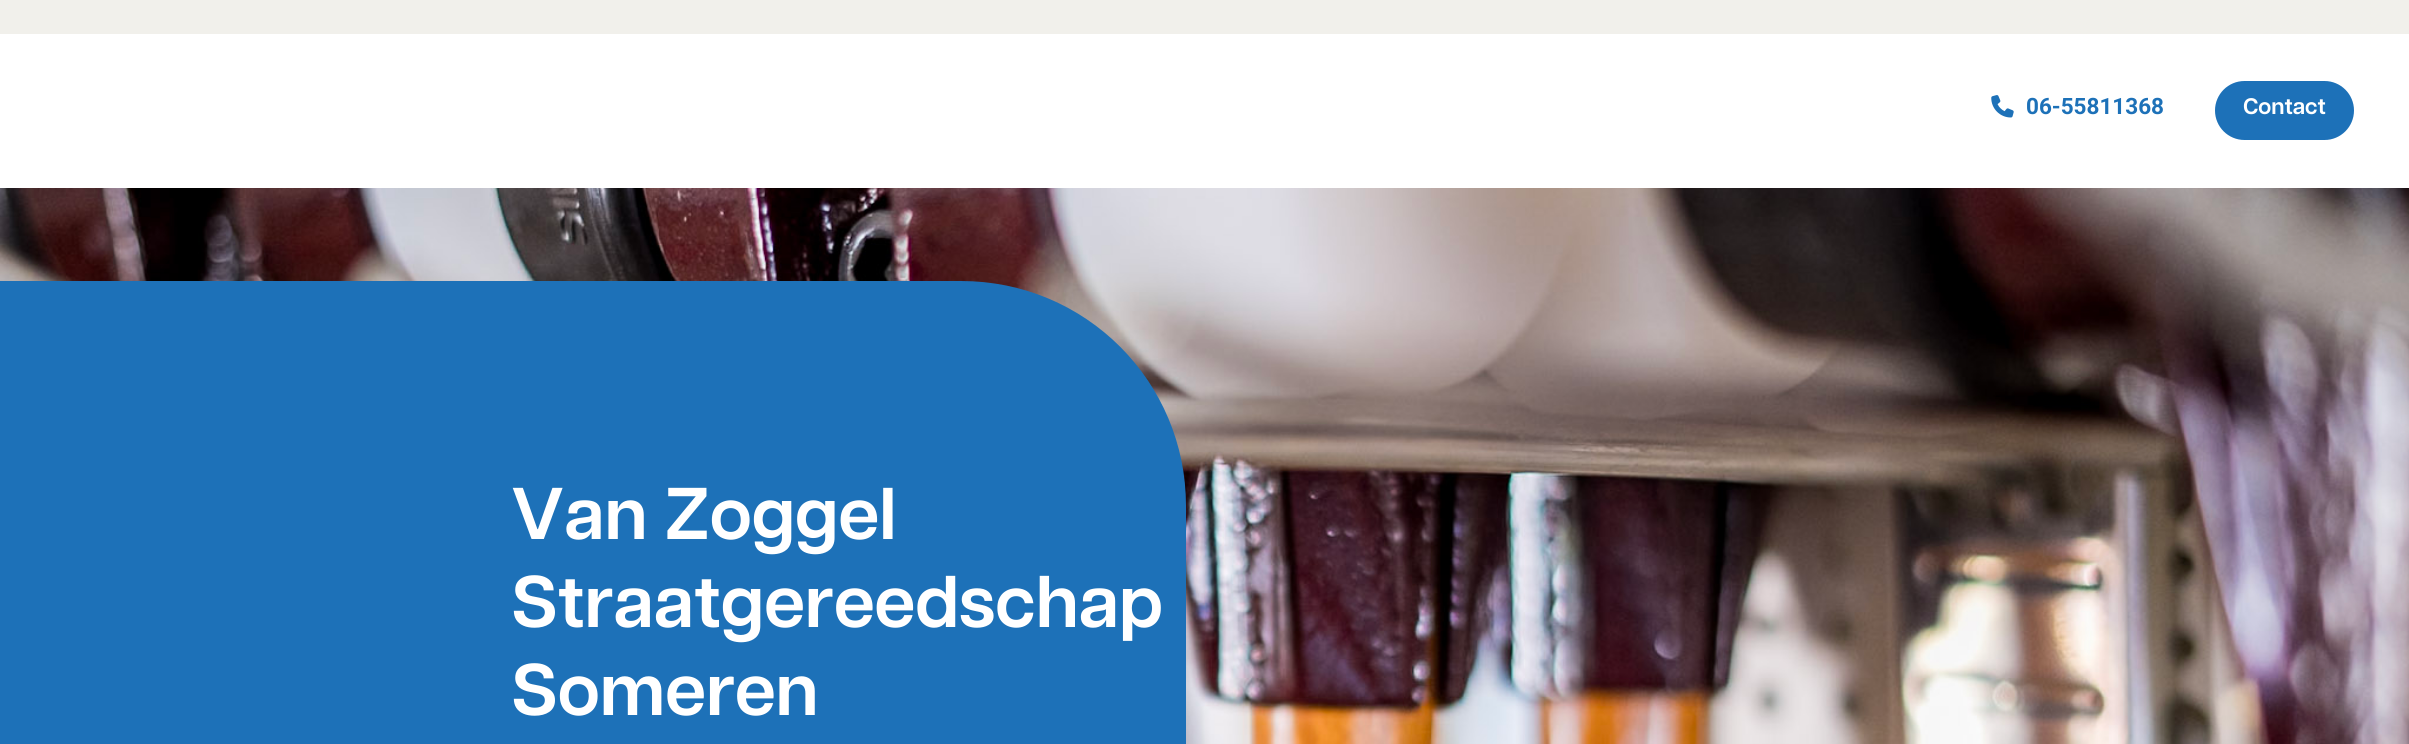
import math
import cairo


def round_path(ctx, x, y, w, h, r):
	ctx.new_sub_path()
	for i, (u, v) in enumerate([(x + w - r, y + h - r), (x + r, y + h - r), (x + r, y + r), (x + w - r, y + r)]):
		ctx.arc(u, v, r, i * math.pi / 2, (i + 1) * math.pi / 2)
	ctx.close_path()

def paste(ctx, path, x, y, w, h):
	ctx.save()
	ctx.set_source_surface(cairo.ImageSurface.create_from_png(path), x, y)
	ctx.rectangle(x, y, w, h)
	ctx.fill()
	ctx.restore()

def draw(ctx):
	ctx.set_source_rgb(1, 1, 1)
	ctx.paint()
	ctx.set_source_rgb(0.945, 0.941, 0.918)
	ctx.rectangle(0, 0, 2409, 34)
	ctx.fill()
	paste(ctx, 'media/1.png', 1991, 95, 23, 23)
	ctx.select_font_face('Roboto', cairo.FONT_SLANT_NORMAL, cairo.FONT_WEIGHT_BOLD)
	ctx.set_font_size(22.5)
	ctx.set_source_rgb(0.114, 0.443, 0.722)
	ctx.move_to(2026, 114)
	ctx.show_text('06-55811368')
	round_path(ctx, 2215, 81, 139, 59, 29.5)
	ctx.fill()
	ctx.select_font_face('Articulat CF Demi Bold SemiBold')
	ctx.set_source_rgb(1, 1, 1)
	ctx.move_to(2243, 114)
	ctx.show_text('Contact')
	paste(ctx, 'media/2.png', 0, 188, 2409, 556)
	ctx.set_source_rgb(0.114, 0.443, 0.722)
	ctx.new_path()
	ctx.move_to(511, 281)
	ctx.line_to(961, 281)
	ctx.curve_to(1085.5, 281, 1186, 381.5, 1186, 506)
	ctx.line_to(1186, 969)
	ctx.line_to(511, 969)
	ctx.close_path()
	ctx.fill()
	ctx.rectangle(0, 281, 511, 463)
	ctx.fill()
	ctx.set_font_size(73.1)
	ctx.set_source_rgb(1, 1, 1)
	for x, y, s in [
		(511, 539, 'Van Zoggel'),
		(511, 627, 'Straatgereedschap'),
		(511, 715, 'Someren'),
	]:
		ctx.move_to(x, y)
		ctx.show_text(s)


surface = cairo.ImageSurface(cairo.FORMAT_RGB24, 2409, 744)
ctx = cairo.Context(surface)
options = cairo.FontOptions()
options.set_hint_metrics(cairo.HINT_METRICS_OFF)
options.set_hint_style(cairo.HINT_STYLE_NONE)
ctx.set_font_options(options)
ctx.set_miter_limit(4)
draw(ctx)
surface.write_to_png('image.png')
